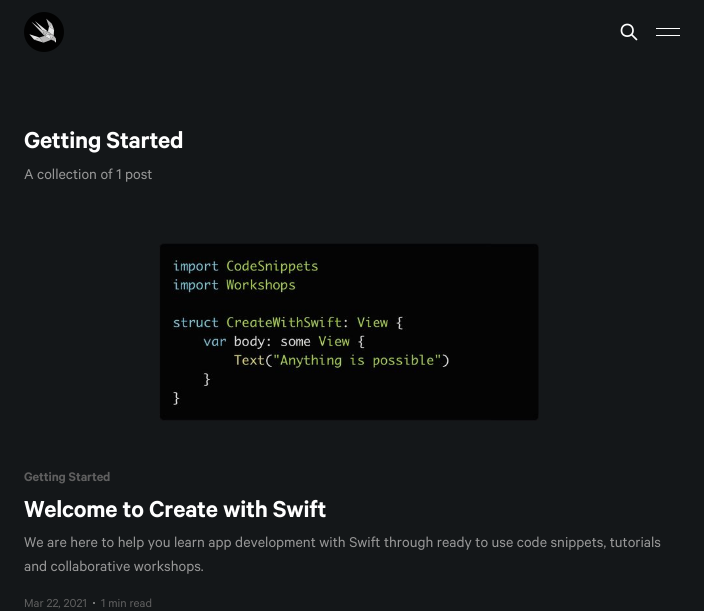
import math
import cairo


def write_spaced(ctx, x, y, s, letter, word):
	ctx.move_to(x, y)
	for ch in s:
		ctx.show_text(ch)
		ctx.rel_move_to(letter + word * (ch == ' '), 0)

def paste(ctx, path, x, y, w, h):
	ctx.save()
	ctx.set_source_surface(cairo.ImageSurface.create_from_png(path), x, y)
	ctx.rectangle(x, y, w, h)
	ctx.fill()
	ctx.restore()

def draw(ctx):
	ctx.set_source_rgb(0.082, 0.09, 0.098)
	ctx.paint()
	paste(ctx, 'media/1.png', 24, 12, 40, 40)
	ctx.new_path()
	ctx.move_to(636.5, 39.5)
	ctx.line_to(631.5, 34.5)
	ctx.move_to(633, 30.5)
	ctx.curve_to(633, 38, 621.5, 38, 621.5, 30.5)
	ctx.curve_to(621.5, 22.5, 633, 22.5, 633, 30.5)
	ctx.close_path()
	ctx.set_source_rgb(1, 1, 1)
	ctx.set_line_width(1.7)
	ctx.set_line_cap(cairo.LINE_CAP_ROUND)
	ctx.set_line_join(cairo.LINE_JOIN_ROUND)
	ctx.stroke()
	ctx.rectangle(656, 28, 24, 1)
	ctx.fill()
	ctx.rectangle(656, 35, 24, 1)
	ctx.fill()
	ctx.select_font_face('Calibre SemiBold')
	ctx.set_font_size(26)
	write_spaced(ctx, 24, 148, 'Getting Started', -0.25, 0)
	ctx.select_font_face('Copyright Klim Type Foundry')
	ctx.set_font_size(16)
	ctx.set_source_rgb(0.592, 0.592, 0.592)
	ctx.move_to(24, 179)
	ctx.show_text('A collection of 1 post')
	paste(ctx, 'media/2.png', 159, 243, 380, 178)
	ctx.select_font_face('Calibre SemiBold')
	ctx.set_font_size(14)
	ctx.set_source_rgb(0.373, 0.373, 0.373)
	write_spaced(ctx, 24, 481, 'Getting Started', -0.1, 0)
	ctx.set_font_size(26)
	ctx.set_source_rgb(1, 1, 1)
	write_spaced(ctx, 24, 517, 'Welcome to Create with Swift', -0.25, 0)
	ctx.select_font_face('Copyright Klim Type Foundry')
	ctx.set_font_size(16)
	ctx.set_source_rgb(0.592, 0.592, 0.592)
	ctx.move_to(24, 547)
	ctx.show_text('We are here to help you learn app development with Swift through ready to use code snippets, tutorials')
	ctx.move_to(24, 571)
	ctx.show_text('and collaborative workshops.')
	ctx.set_font_size(13)
	ctx.set_source_rgb(0.373, 0.373, 0.373)
	ctx.move_to(24, 607)
	ctx.show_text('Mar 22, 2021')
	ctx.set_source_rgb(0.592, 0.592, 0.592)
	ctx.new_path()
	ctx.arc(94, 603, 1, 0, 2 * math.pi)
	ctx.fill()
	ctx.set_source_rgb(0.373, 0.373, 0.373)
	ctx.move_to(101, 607)
	ctx.show_text('1 min read')


surface = cairo.ImageSurface(cairo.FORMAT_RGB24, 704, 611)
ctx = cairo.Context(surface)
options = cairo.FontOptions()
options.set_hint_metrics(cairo.HINT_METRICS_OFF)
options.set_hint_style(cairo.HINT_STYLE_NONE)
ctx.set_font_options(options)
ctx.set_miter_limit(4)
draw(ctx)
surface.write_to_png('image.png')
